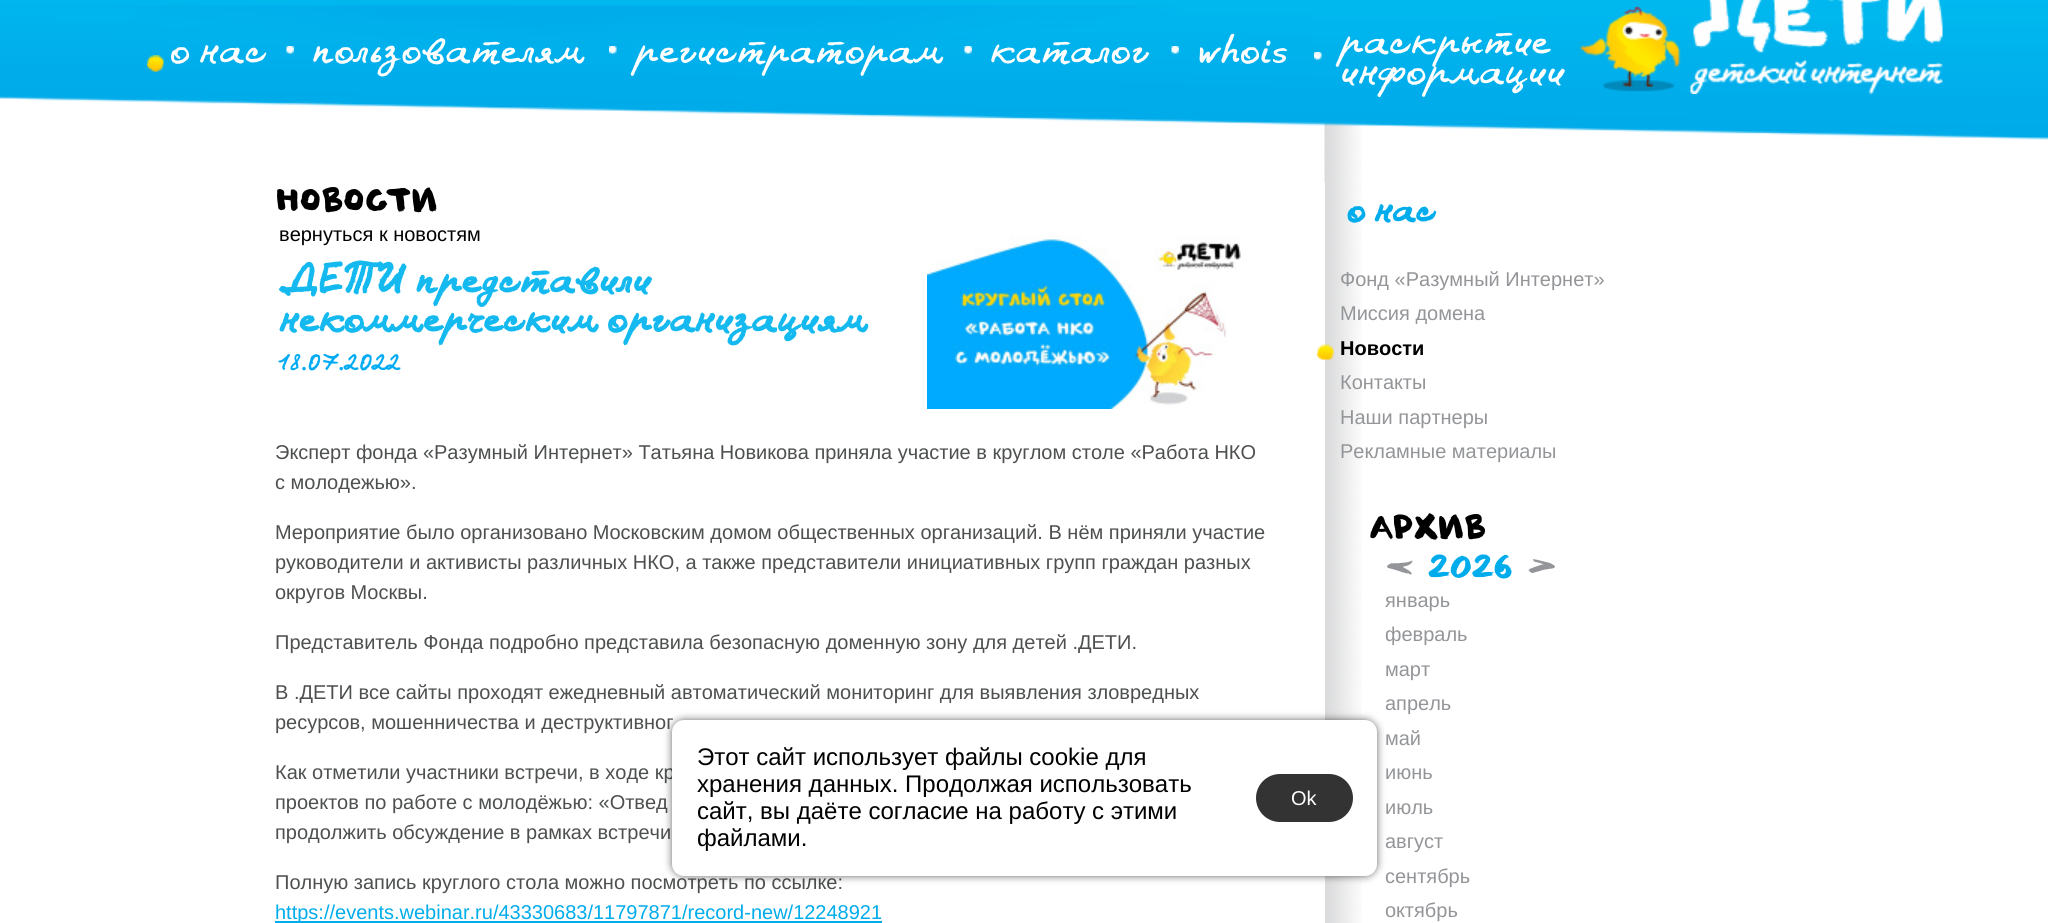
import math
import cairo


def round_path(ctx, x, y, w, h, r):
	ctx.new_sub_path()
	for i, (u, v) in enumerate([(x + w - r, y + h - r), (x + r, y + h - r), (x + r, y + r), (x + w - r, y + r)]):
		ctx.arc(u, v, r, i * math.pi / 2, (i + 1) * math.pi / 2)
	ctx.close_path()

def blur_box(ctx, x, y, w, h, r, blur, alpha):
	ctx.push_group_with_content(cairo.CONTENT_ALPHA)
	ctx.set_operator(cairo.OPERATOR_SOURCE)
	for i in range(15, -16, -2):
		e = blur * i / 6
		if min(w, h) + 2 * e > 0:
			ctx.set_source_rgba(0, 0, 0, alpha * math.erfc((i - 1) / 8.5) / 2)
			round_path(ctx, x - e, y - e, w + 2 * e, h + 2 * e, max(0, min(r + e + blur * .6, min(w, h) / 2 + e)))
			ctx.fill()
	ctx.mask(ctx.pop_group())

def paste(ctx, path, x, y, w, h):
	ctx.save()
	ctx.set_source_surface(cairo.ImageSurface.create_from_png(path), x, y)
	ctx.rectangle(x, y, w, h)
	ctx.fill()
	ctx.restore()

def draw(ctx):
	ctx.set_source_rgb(1, 1, 1)
	ctx.paint()
	paste(ctx, 'media/10.png', 1324, 122, 38, 801)
	paste(ctx, 'media/1.png', 0, 0, 2048, 140)
	paste(ctx, 'media/2.png', 147, 55, 17, 17)
	ctx.select_font_face('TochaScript')
	ctx.set_font_size(48)
	ctx.set_source_rgb(1, 1, 1)
	ctx.move_to(170, 62)
	ctx.show_text('о нас')
	paste(ctx, 'media/3.png', 286, 46, 8, 8)
	ctx.move_to(312, 62)
	ctx.show_text('пользователям')
	paste(ctx, 'media/4.png', 609, 46, 8, 8)
	ctx.move_to(635, 62)
	ctx.show_text('регистраторам')
	paste(ctx, 'media/5.png', 964, 46, 8, 8)
	ctx.move_to(990, 62)
	ctx.show_text('каталог')
	paste(ctx, 'media/6.png', 1171, 46, 8, 8)
	ctx.move_to(1197, 62)
	ctx.show_text('whois')
	paste(ctx, 'media/7.png', 1314, 52, 8, 8)
	ctx.move_to(1340, 53)
	ctx.show_text('раскрытие')
	ctx.move_to(1340, 83)
	ctx.show_text('информации')
	paste(ctx, 'media/8.png', 1579, 0, 364, 94)
	ctx.rectangle(1324, 182, 1, 741)
	ctx.fill()
	ctx.select_font_face('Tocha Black')
	ctx.set_font_size(40)
	ctx.set_source_rgb(0, 0, 0)
	ctx.move_to(275, 211)
	ctx.show_text('Новости')
	ctx.select_font_face('Liberation Sans')
	ctx.set_font_size(20)
	ctx.move_to(279, 241)
	ctx.show_text('вернуться к новостям')
	ctx.select_font_face('TochaScript', cairo.FONT_SLANT_NORMAL, cairo.FONT_WEIGHT_BOLD)
	ctx.set_font_size(48)
	ctx.set_source_rgb(0.082, 0.725, 0.937)
	ctx.move_to(279, 292)
	ctx.show_text('.ДЕТИ представили')
	ctx.move_to(279, 331)
	ctx.show_text('некоммерческим организациям')
	ctx.select_font_face('TochaScript')
	ctx.set_font_size(32)
	ctx.set_source_rgb(0, 0.671, 0.953)
	ctx.move_to(279, 370)
	ctx.show_text('18.07.2022')
	paste(ctx, 'media/9.png', 927, 235, 314, 174)
	ctx.select_font_face('Liberation Sans')
	ctx.set_font_size(20)
	ctx.set_source_rgb(0.306, 0.314, 0.314)
	for x, y, s in [
		(275, 459, 'Эксперт фонда «Разумный Интернет» Татьяна Новикова приняла участие в круглом столе «Работа НКО'),
		(275, 489, 'с молодежью».'),
		(275, 539, 'Мероприятие было организовано Московским домом общественных организаций. В нём приняли участие'),
		(275, 569, 'руководители и активисты различных НКО, а также представители инициативных групп граждан разных'),
		(275, 599, 'округов Москвы.'),
		(275, 649, 'Представитель Фонда подробно представила безопасную доменную зону для детей .ДЕТИ.'),
		(275, 699, 'В .ДЕТИ все сайты проходят ежедневный автоматический мониторинг для выявления зловредных'),
		(275, 729, 'ресурсов, мошенничества и деструктивног'),
		(275, 779, 'Как отметили участники встречи, в ходе кр'),
		(275, 809, 'проектов по работе с молодёжью: «Отвед'),
		(275, 839, 'продолжить обсуждение в рамках встречи'),
		(275, 889, 'Полную запись круглого стола можно посмотреть по ссылке:'),
	]:
		ctx.move_to(x, y)
		ctx.show_text(s)
	ctx.set_source_rgb(0, 0.678, 0.918)
	ctx.rectangle(275, 921, 607, 2)
	ctx.fill()
	ctx.set_source_rgb(0, 0.675, 0.918)
	ctx.move_to(275, 919)
	ctx.show_text('https://events.webinar.ru/43330683/11797871/record-new/12248921')
	ctx.select_font_face('TochaScript', cairo.FONT_SLANT_NORMAL, cairo.FONT_WEIGHT_BOLD)
	ctx.set_font_size(44)
	ctx.move_to(1347, 221)
	ctx.show_text('о нас')
	ctx.select_font_face('Liberation Sans')
	ctx.set_font_size(20)
	ctx.set_source_rgb(0.576, 0.584, 0.596)
	ctx.move_to(1340, 286)
	ctx.show_text('Фонд «Разумный Интернет»')
	ctx.move_to(1340, 320)
	ctx.show_text('Миссия домена')
	paste(ctx, 'media/11.png', 1317, 344, 17, 16)
	ctx.select_font_face('Liberation Sans', cairo.FONT_SLANT_NORMAL, cairo.FONT_WEIGHT_BOLD)
	ctx.set_source_rgb(0, 0, 0)
	ctx.move_to(1340, 355)
	ctx.show_text('Новости')
	ctx.select_font_face('Liberation Sans')
	ctx.set_source_rgb(0.576, 0.584, 0.596)
	for x, y, s in [
		(1340, 389, 'Контакты'),
		(1340, 424, 'Наши партнеры'),
		(1340, 458, 'Рекламные материалы'),
	]:
		ctx.move_to(x, y)
		ctx.show_text(s)
	ctx.select_font_face('Tocha Black')
	ctx.set_font_size(40)
	ctx.set_source_rgb(0, 0, 0)
	ctx.move_to(1370, 538)
	ctx.show_text('Архив')
	ctx.set_source_rgb(0.576, 0.584, 0.596)
	ctx.move_to(1385, 578)
	ctx.show_text('<')
	ctx.set_source_rgb(0, 0.675, 0.918)
	ctx.move_to(1428, 578)
	ctx.show_text('2026')
	ctx.set_source_rgb(0.576, 0.584, 0.596)
	ctx.move_to(1527, 578)
	ctx.show_text('>')
	ctx.select_font_face('Liberation Sans')
	ctx.set_font_size(20)
	for x, y, s in [
		(1385, 607, 'январь'),
		(1385, 641, 'февраль'),
		(1385, 676, 'март'),
		(1385, 710, 'апрель'),
		(1385, 745, 'май'),
		(1385, 779, 'июнь'),
		(1385, 814, 'июль'),
		(1385, 848, 'август'),
		(1385, 883, 'сентябрь'),
		(1385, 917, 'октябрь'),
	]:
		ctx.move_to(x, y)
		ctx.show_text(s)
	ctx.set_source_rgb(0, 0, 0)
	blur_box(ctx, 672, 720, 705, 156, 12, 4, 0.6)
	ctx.set_source_rgb(1, 1, 1)
	round_path(ctx, 672, 720, 705, 156, 12)
	ctx.fill()
	ctx.set_font_size(24)
	ctx.set_source_rgb(0, 0, 0)
	for x, y, s in [
		(697, 765, 'Этот сайт использует файлы cookie для'),
		(697, 792, 'хранения данных. Продолжая использовать'),
		(697, 819, 'сайт, вы даёте согласие на работу с этими'),
		(697, 846, 'файлами.'),
	]:
		ctx.move_to(x, y)
		ctx.show_text(s)
	ctx.set_source_rgb(0.2, 0.2, 0.2)
	round_path(ctx, 1256, 774, 97, 48, 24)
	ctx.fill()
	ctx.set_font_size(20)
	ctx.set_source_rgb(1, 1, 1)
	ctx.move_to(1291, 805)
	ctx.show_text('Ok')


surface = cairo.ImageSurface(cairo.FORMAT_RGB24, 2048, 923)
ctx = cairo.Context(surface)
options = cairo.FontOptions()
options.set_hint_metrics(cairo.HINT_METRICS_OFF)
options.set_hint_style(cairo.HINT_STYLE_NONE)
ctx.set_font_options(options)
ctx.set_miter_limit(4)
draw(ctx)
surface.write_to_png('image.png')
